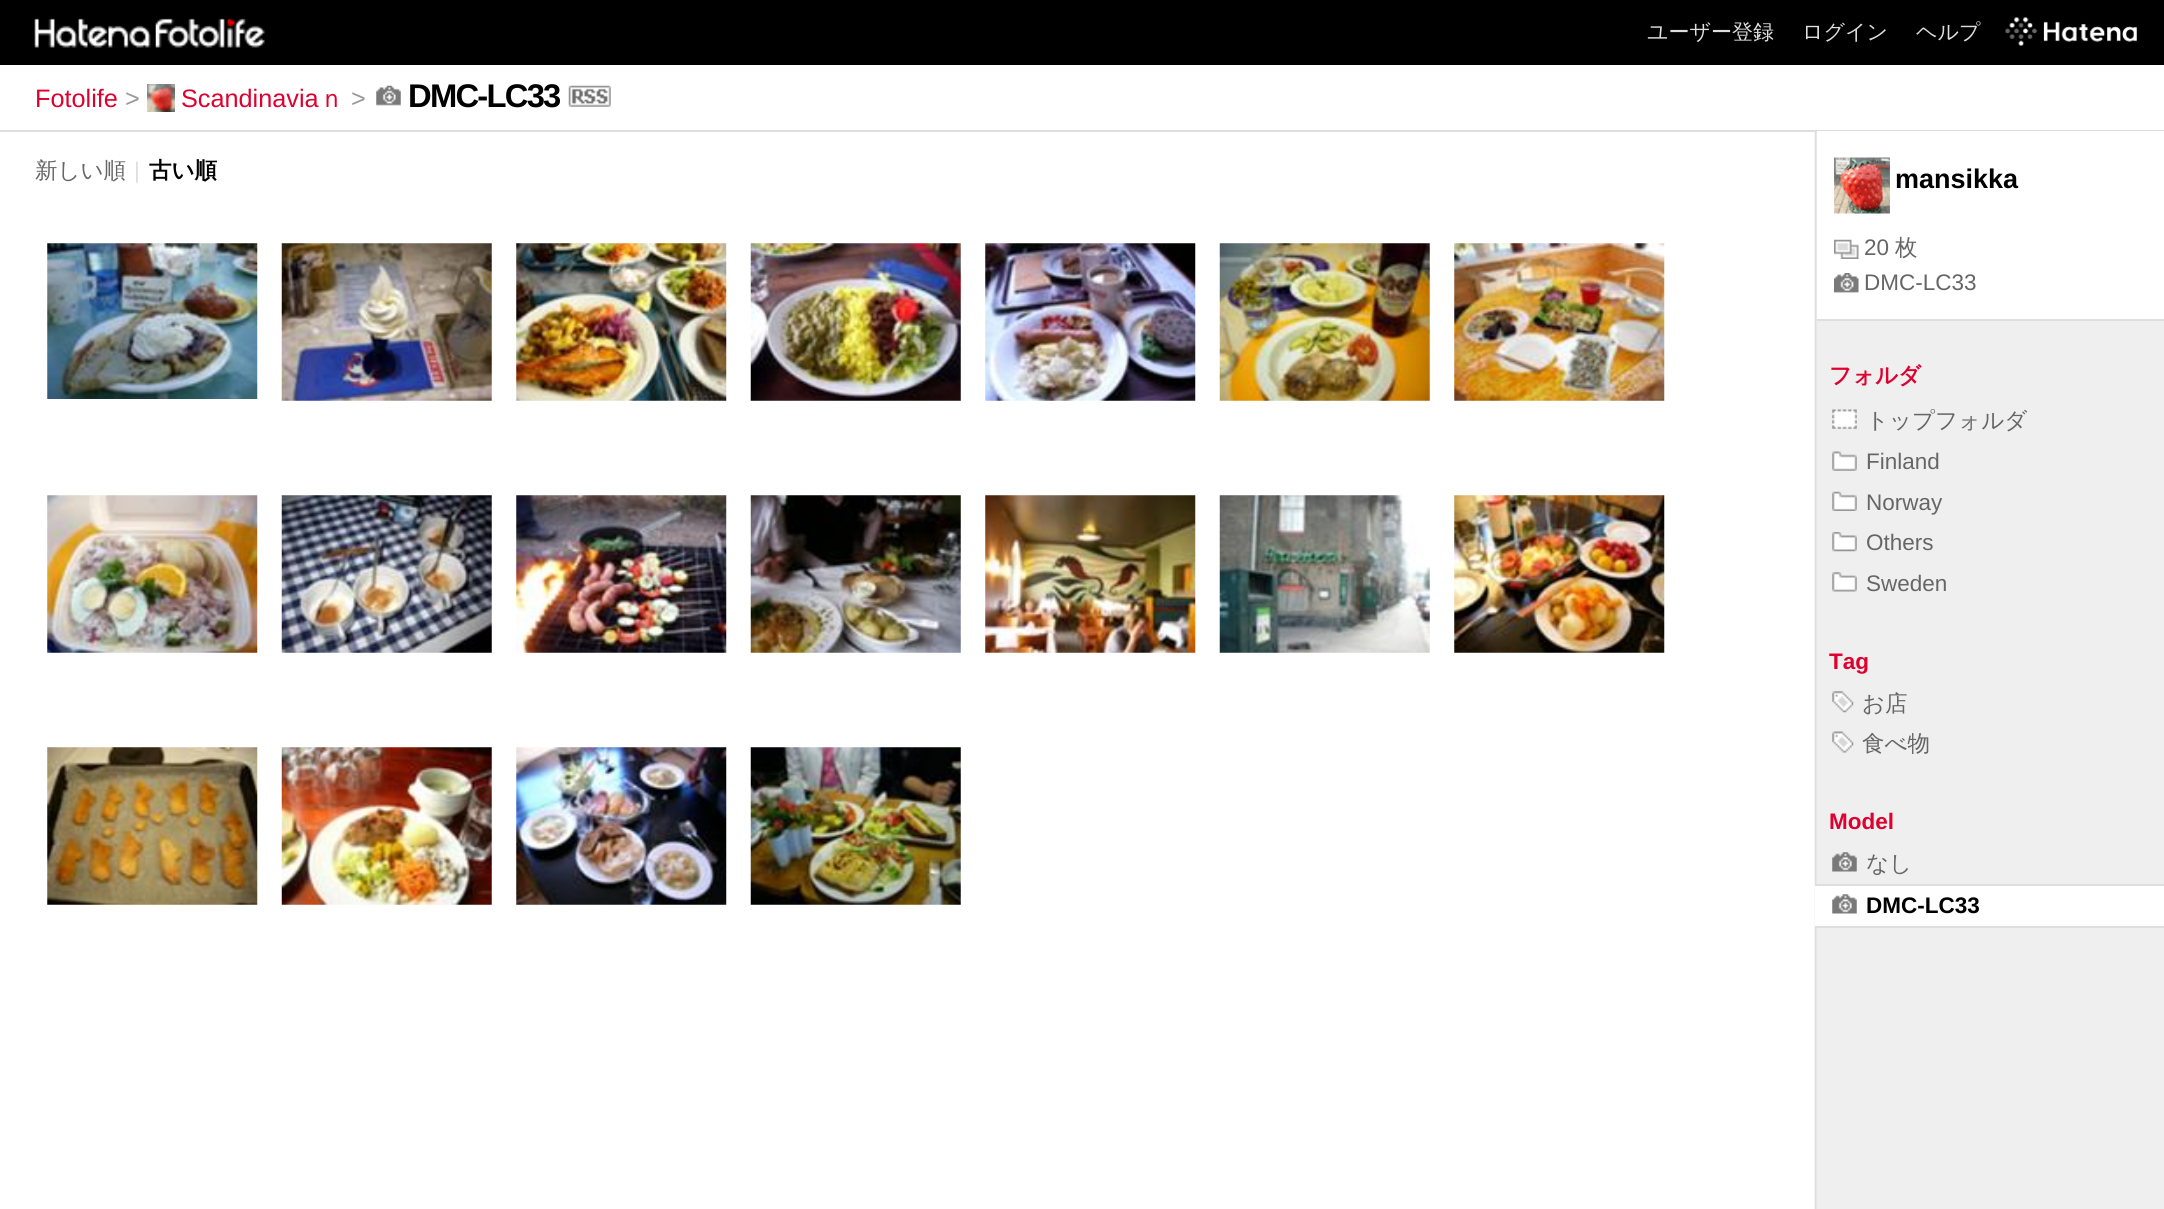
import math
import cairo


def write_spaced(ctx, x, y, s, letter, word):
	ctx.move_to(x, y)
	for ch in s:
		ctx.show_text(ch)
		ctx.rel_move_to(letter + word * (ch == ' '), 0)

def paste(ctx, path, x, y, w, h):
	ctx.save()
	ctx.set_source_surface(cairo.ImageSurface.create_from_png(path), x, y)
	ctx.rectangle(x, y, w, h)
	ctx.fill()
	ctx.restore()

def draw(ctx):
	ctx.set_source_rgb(1, 1, 1)
	ctx.paint()
	paste(ctx, 'media/1.png', 1814, 132, 350, 1077)
	ctx.set_source_rgb(0, 0, 0)
	ctx.rectangle(0, 0, 2164, 65)
	ctx.fill()
	paste(ctx, 'media/2.png', 34, 18, 117, 30)
	paste(ctx, 'media/3.png', 155, 18, 110, 30)
	ctx.select_font_face('WenQuanYi Zen Hei Medium')
	ctx.set_font_size(21)
	ctx.set_source_rgb(0.871, 0.871, 0.871)
	for x, y, s in [
		(1647, 39, 'ユーザー登録'),
		(1802, 39, 'ログイン'),
		(1916, 39, 'ヘルプ'),
	]:
		ctx.move_to(x, y)
		ctx.show_text(s)
	paste(ctx, 'media/4.png', 2005, 17, 132, 29)
	ctx.rectangle(0, 130, 2164, 2)
	ctx.fill()
	ctx.select_font_face('Liberation Sans')
	ctx.set_font_size(25.25)
	ctx.set_source_rgb(0.871, 0, 0.184)
	ctx.move_to(35, 107)
	ctx.show_text('Fotolife')
	ctx.set_source_rgb(0.6, 0.6, 0.6)
	ctx.move_to(125, 107)
	ctx.show_text('>')
	paste(ctx, 'media/5.png', 147, 84, 28, 28)
	ctx.set_source_rgb(0.871, 0, 0.184)
	ctx.move_to(181, 107)
	ctx.show_text('Scandinavia')
	ctx.select_font_face('WenQuanYi Zen Hei Medium')
	ctx.move_to(319, 107)
	ctx.show_text('ｎ')
	ctx.select_font_face('Liberation Sans')
	ctx.set_source_rgb(0.6, 0.6, 0.6)
	ctx.move_to(351, 107)
	ctx.show_text('>')
	paste(ctx, 'media/6.png', 376, 85, 25, 21)
	ctx.select_font_face('Liberation Sans', cairo.FONT_SLANT_NORMAL, cairo.FONT_WEIGHT_BOLD)
	ctx.set_font_size(32.75)
	ctx.set_source_rgb(0, 0, 0)
	write_spaced(ctx, 408, 107, 'DMC-LC33', -1.75, 0)
	paste(ctx, 'media/7.png', 568, 85, 43, 22)
	ctx.select_font_face('WenQuanYi Zen Hei Medium')
	ctx.set_font_size(22.5)
	ctx.set_source_rgb(0.4, 0.4, 0.4)
	ctx.move_to(35, 178)
	ctx.show_text('新しい順')
	ctx.select_font_face('Liberation Sans')
	ctx.set_source_rgb(0.871, 0.871, 0.871)
	ctx.move_to(134, 178)
	ctx.show_text('|')
	ctx.select_font_face('WenQuanYi Zen Hei', cairo.FONT_SLANT_NORMAL, cairo.FONT_WEIGHT_BOLD)
	ctx.set_source_rgb(0, 0, 0)
	ctx.move_to(149, 178)
	ctx.show_text('古い順')
	paste(ctx, 'media/8.png', 47, 243, 211, 156)
	paste(ctx, 'media/9.png', 281, 243, 211, 158)
	paste(ctx, 'media/10.png', 516, 243, 211, 158)
	paste(ctx, 'media/11.png', 750, 243, 211, 158)
	paste(ctx, 'media/12.png', 985, 243, 211, 158)
	paste(ctx, 'media/13.png', 1219, 243, 211, 158)
	paste(ctx, 'media/14.png', 1454, 243, 211, 158)
	paste(ctx, 'media/15.png', 47, 495, 211, 158)
	paste(ctx, 'media/16.png', 281, 495, 211, 158)
	paste(ctx, 'media/17.png', 516, 495, 211, 158)
	paste(ctx, 'media/18.png', 750, 495, 211, 158)
	paste(ctx, 'media/19.png', 985, 495, 211, 158)
	paste(ctx, 'media/20.png', 1219, 495, 211, 158)
	paste(ctx, 'media/21.png', 1454, 495, 211, 158)
	paste(ctx, 'media/22.png', 47, 747, 211, 158)
	paste(ctx, 'media/23.png', 281, 747, 211, 158)
	paste(ctx, 'media/24.png', 516, 747, 211, 158)
	paste(ctx, 'media/25.png', 750, 747, 211, 158)
	ctx.set_source_rgb(1, 1, 1)
	ctx.rectangle(1817, 131, 347, 188)
	ctx.fill()
	ctx.set_source_rgb(0.871, 0.871, 0.871)
	ctx.rectangle(1817, 319, 347, 2)
	ctx.fill()
	paste(ctx, 'media/26.png', 1834, 157, 56, 57)
	ctx.select_font_face('Liberation Sans', cairo.FONT_SLANT_NORMAL, cairo.FONT_WEIGHT_BOLD)
	ctx.set_font_size(27)
	ctx.set_source_rgb(0, 0, 0)
	ctx.move_to(1895, 188)
	ctx.show_text('mansikka')
	paste(ctx, 'media/27.png', 1834, 239, 25, 20)
	ctx.select_font_face('Liberation Sans')
	ctx.set_font_size(22.5)
	ctx.set_source_rgb(0.4, 0.4, 0.4)
	ctx.move_to(1864, 255)
	ctx.show_text('20')
	ctx.select_font_face('WenQuanYi Zen Hei Medium')
	ctx.move_to(1895, 255)
	ctx.show_text('枚')
	paste(ctx, 'media/28.png', 1834, 273, 25, 20)
	ctx.select_font_face('Liberation Sans')
	ctx.move_to(1864, 290)
	ctx.show_text('DMC-LC33')
	ctx.select_font_face('WenQuanYi Zen Hei', cairo.FONT_SLANT_NORMAL, cairo.FONT_WEIGHT_BOLD)
	ctx.set_source_rgb(0.871, 0, 0.184)
	ctx.move_to(1829, 383)
	ctx.show_text('フォルダ')
	paste(ctx, 'media/29.png', 1815, 401, 349, 203)
	paste(ctx, 'media/30.png', 1832, 409, 25, 20)
	ctx.select_font_face('WenQuanYi Zen Hei Medium')
	ctx.set_source_rgb(0.4, 0.4, 0.4)
	ctx.move_to(1866, 428)
	ctx.show_text('トップフォルダ')
	paste(ctx, 'media/31.png', 1832, 451, 25, 20)
	ctx.select_font_face('Liberation Sans')
	ctx.move_to(1866, 469)
	ctx.show_text('Finland')
	paste(ctx, 'media/32.png', 1832, 491, 25, 20)
	ctx.move_to(1866, 510)
	ctx.show_text('Norway')
	paste(ctx, 'media/33.png', 1832, 532, 25, 20)
	ctx.move_to(1866, 550)
	ctx.show_text('Others')
	paste(ctx, 'media/34.png', 1832, 572, 25, 20)
	ctx.move_to(1866, 591)
	ctx.show_text('Sweden')
	ctx.select_font_face('Liberation Sans', cairo.FONT_SLANT_NORMAL, cairo.FONT_WEIGHT_BOLD)
	ctx.set_source_rgb(0.871, 0, 0.184)
	ctx.move_to(1829, 669)
	ctx.show_text('Tag')
	paste(ctx, 'media/35.png', 1815, 683, 349, 82)
	paste(ctx, 'media/36.png', 1832, 691, 22, 22)
	ctx.select_font_face('WenQuanYi Zen Hei Medium')
	ctx.set_source_rgb(0.4, 0.4, 0.4)
	ctx.move_to(1862, 711)
	ctx.show_text('お店')
	paste(ctx, 'media/37.png', 1832, 731, 22, 22)
	ctx.move_to(1862, 751)
	ctx.show_text('食べ物')
	ctx.select_font_face('Liberation Sans', cairo.FONT_SLANT_NORMAL, cairo.FONT_WEIGHT_BOLD)
	ctx.set_source_rgb(0.871, 0, 0.184)
	ctx.move_to(1829, 829)
	ctx.show_text('Model')
	paste(ctx, 'media/38.png', 1832, 852, 25, 20)
	ctx.select_font_face('WenQuanYi Zen Hei Medium')
	ctx.set_source_rgb(0.4, 0.4, 0.4)
	ctx.move_to(1866, 871)
	ctx.show_text('なし')
	ctx.set_source_rgb(1, 1, 1)
	ctx.rectangle(1815, 886, 349, 40)
	ctx.fill()
	ctx.set_source_rgb(0.871, 0.871, 0.871)
	ctx.rectangle(1815, 884, 349, 2)
	ctx.rectangle(1815, 926, 349, 2)
	ctx.fill()
	paste(ctx, 'media/39.png', 1832, 894, 25, 20)
	ctx.select_font_face('Liberation Sans', cairo.FONT_SLANT_NORMAL, cairo.FONT_WEIGHT_BOLD)
	ctx.set_source_rgb(0, 0, 0)
	ctx.move_to(1866, 913)
	ctx.show_text('DMC-LC33')


surface = cairo.ImageSurface(cairo.FORMAT_RGB24, 2164, 1209)
ctx = cairo.Context(surface)
options = cairo.FontOptions()
options.set_hint_metrics(cairo.HINT_METRICS_OFF)
options.set_hint_style(cairo.HINT_STYLE_NONE)
ctx.set_font_options(options)
ctx.set_miter_limit(4)
draw(ctx)
surface.write_to_png('image.png')
